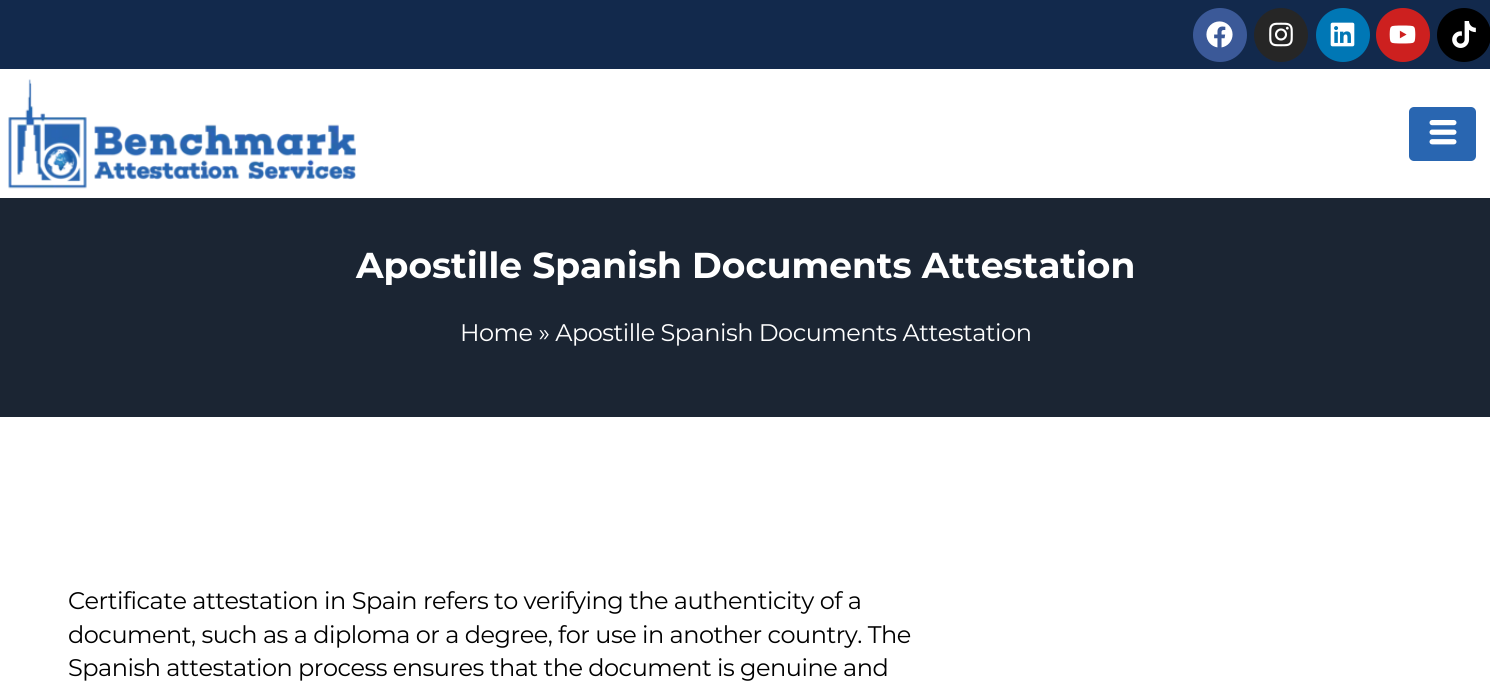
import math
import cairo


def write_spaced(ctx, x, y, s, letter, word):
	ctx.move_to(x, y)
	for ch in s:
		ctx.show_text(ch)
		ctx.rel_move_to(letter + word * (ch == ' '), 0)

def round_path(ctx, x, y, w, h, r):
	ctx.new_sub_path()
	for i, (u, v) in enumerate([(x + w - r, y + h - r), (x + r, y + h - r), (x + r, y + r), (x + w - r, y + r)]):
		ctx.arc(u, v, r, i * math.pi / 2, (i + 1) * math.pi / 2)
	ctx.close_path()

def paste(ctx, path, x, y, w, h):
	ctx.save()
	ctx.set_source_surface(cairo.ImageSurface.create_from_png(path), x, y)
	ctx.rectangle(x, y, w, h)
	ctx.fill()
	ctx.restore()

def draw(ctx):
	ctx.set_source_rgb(1, 1, 1)
	ctx.paint()
	ctx.set_source_rgb(0.071, 0.161, 0.298)
	ctx.rectangle(0, 0, 1490, 69)
	ctx.fill()
	ctx.set_source_rgb(0.231, 0.349, 0.596)
	ctx.arc(1220, 35, 27, 0, 2 * math.pi)
	ctx.fill()
	paste(ctx, 'media/1.png', 1206, 21, 27, 27)
	ctx.set_source_rgb(0.149, 0.149, 0.149)
	ctx.arc(1281, 35, 27, 0, 2 * math.pi)
	ctx.fill()
	paste(ctx, 'media/2.png', 1269, 22, 24, 25)
	ctx.set_source_rgb(0, 0.467, 0.71)
	ctx.arc(1343, 35, 27, 0, 2 * math.pi)
	ctx.fill()
	paste(ctx, 'media/3.png', 1330, 22, 25, 25)
	ctx.set_source_rgb(0.804, 0.125, 0.122)
	ctx.arc(1403, 35, 27, 0, 2 * math.pi)
	ctx.fill()
	paste(ctx, 'media/4.png', 1389, 25, 27, 19)
	ctx.set_source_rgb(0, 0, 0)
	ctx.arc(1464, 35, 27, 0, 2 * math.pi)
	ctx.fill()
	paste(ctx, 'media/5.png', 1452, 21, 24, 27)
	paste(ctx, 'media/6.png', 8, 79, 348, 110)
	ctx.set_source_rgb(0.161, 0.4, 0.694)
	round_path(ctx, 1409, 107, 67, 54, 5)
	ctx.fill()
	paste(ctx, 'media/7.png', 1429, 120, 28, 25)
	ctx.set_source_rgb(0.106, 0.145, 0.2)
	ctx.rectangle(0, 198, 1490, 219)
	ctx.fill()
	ctx.select_font_face('Montserrat', cairo.FONT_SLANT_NORMAL, cairo.FONT_WEIGHT_BOLD)
	ctx.set_font_size(36)
	ctx.set_source_rgb(1, 1, 1)
	ctx.move_to(356, 278)
	ctx.show_text('Apostille Spanish Documents Attestation')
	ctx.select_font_face('Montserrat')
	ctx.set_font_size(24)
	write_spaced(ctx, 460, 341, 'Home » Apostille Spanish Documents Attestation', -0.48, 0)
	ctx.set_source_rgb(0, 0, 0)
	for x, y, s in [
		(68, 609, 'Certificate attestation in Spain refers to verifying the authenticity of a'),
		(68, 643, 'document, such as a diploma or a degree, for use in another country. The'),
		(68, 676, 'Spanish attestation process ensures that the document is genuine and'),
	]:
		write_spaced(ctx, x, y, s, -0.48, 0)


surface = cairo.ImageSurface(cairo.FORMAT_RGB24, 1490, 683)
ctx = cairo.Context(surface)
options = cairo.FontOptions()
options.set_hint_metrics(cairo.HINT_METRICS_OFF)
options.set_hint_style(cairo.HINT_STYLE_NONE)
ctx.set_font_options(options)
ctx.set_miter_limit(4)
draw(ctx)
surface.write_to_png('image.png')
